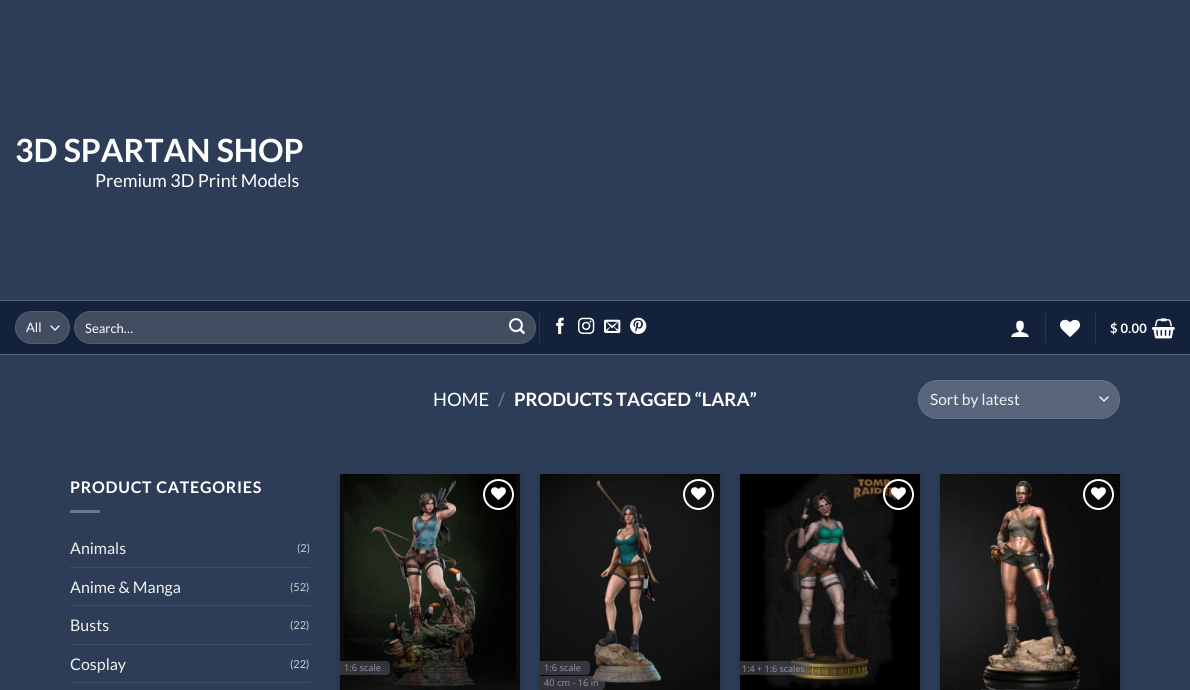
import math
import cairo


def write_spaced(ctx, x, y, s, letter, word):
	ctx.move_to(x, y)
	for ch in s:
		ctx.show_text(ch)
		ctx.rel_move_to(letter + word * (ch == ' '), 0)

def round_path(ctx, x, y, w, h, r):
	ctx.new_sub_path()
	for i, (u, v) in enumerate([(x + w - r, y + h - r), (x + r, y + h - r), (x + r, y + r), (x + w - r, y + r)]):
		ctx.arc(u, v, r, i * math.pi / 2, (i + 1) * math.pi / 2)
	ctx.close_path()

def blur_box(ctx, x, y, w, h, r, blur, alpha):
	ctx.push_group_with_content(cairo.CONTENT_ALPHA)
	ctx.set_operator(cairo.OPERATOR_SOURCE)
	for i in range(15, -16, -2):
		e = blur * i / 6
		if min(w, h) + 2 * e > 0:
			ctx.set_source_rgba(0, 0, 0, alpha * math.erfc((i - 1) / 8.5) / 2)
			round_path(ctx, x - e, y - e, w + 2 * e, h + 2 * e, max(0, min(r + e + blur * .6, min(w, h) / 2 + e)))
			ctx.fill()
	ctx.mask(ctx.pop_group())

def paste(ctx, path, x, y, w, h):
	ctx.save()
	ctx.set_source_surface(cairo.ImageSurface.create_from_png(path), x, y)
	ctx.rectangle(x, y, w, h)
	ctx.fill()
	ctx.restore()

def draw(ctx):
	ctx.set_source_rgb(0.176, 0.239, 0.341)
	ctx.paint()
	ctx.select_font_face('Lato', cairo.FONT_SLANT_NORMAL, cairo.FONT_WEIGHT_BOLD)
	ctx.set_font_size(32)
	ctx.set_source_rgb(1, 1, 1)
	ctx.move_to(15, 162)
	ctx.show_text('3D SPARTAN SHOP')
	ctx.select_font_face('Lato')
	ctx.set_font_size(18)
	ctx.move_to(95, 187)
	ctx.show_text('Premium 3D Print Models')
	ctx.set_source_rgb(0.075, 0.129, 0.231)
	ctx.rectangle(0, 301, 1190, 53)
	ctx.fill()
	ctx.set_source_rgb(0.365, 0.404, 0.51)
	ctx.rectangle(0, 300, 1190, 1)
	ctx.rectangle(0, 354, 1190, 1)
	ctx.fill()
	ctx.set_source_rgb(0.259, 0.302, 0.384)
	round_path(ctx, 15, 311, 55, 33, 16.5)
	ctx.fill()
	ctx.new_path()
	ctx.move_to(51, 326)
	ctx.line_to(55, 330)
	ctx.line_to(59, 326)
	ctx.set_source_rgb(1, 1, 1)
	ctx.set_line_width(1.3)
	ctx.set_line_cap(cairo.LINE_CAP_ROUND)
	ctx.set_line_join(cairo.LINE_JOIN_ROUND)
	ctx.stroke()
	round_path(ctx, 15.5, 311.5, 54, 32, 16)
	ctx.set_source_rgba(1, 1, 1, 0.09)
	ctx.set_line_width(1)
	ctx.set_line_cap(cairo.LINE_CAP_BUTT)
	ctx.set_line_join(cairo.LINE_JOIN_MITER)
	ctx.stroke()
	ctx.set_font_size(13)
	ctx.set_source_rgb(1, 1, 1)
	ctx.move_to(26, 332)
	ctx.show_text('All')
	ctx.set_source_rgb(0.259, 0.302, 0.384)
	round_path(ctx, 74, 311, 462, 33, 16.5)
	ctx.fill()
	round_path(ctx, 74.5, 311.5, 461, 32, 16)
	ctx.set_source_rgba(1, 1, 1, 0.09)
	ctx.stroke()
	ctx.set_source_rgb(1, 1, 1)
	ctx.move_to(85, 333)
	ctx.show_text('Search…')
	paste(ctx, 'media/1.png', 509, 318, 16, 16)
	ctx.set_source_rgb(0.169, 0.216, 0.31)
	ctx.rectangle(539, 313, 1, 30)
	ctx.fill()
	paste(ctx, 'media/2.png', 556, 317, 8, 17)
	paste(ctx, 'media/3.png', 578, 317, 17, 17)
	paste(ctx, 'media/4.png', 604, 319, 17, 14)
	paste(ctx, 'media/5.png', 630, 317, 17, 17)
	paste(ctx, 'media/6.png', 1011, 320, 18, 17)
	ctx.rectangle(1045, 313, 1, 30)
	ctx.fill()
	paste(ctx, 'media/7.png', 1060, 319, 20, 18)
	ctx.rectangle(1095, 313, 1, 30)
	ctx.fill()
	ctx.select_font_face('Lato', cairo.FONT_SLANT_NORMAL, cairo.FONT_WEIGHT_BOLD)
	ctx.set_source_rgb(1, 1, 1)
	write_spaced(ctx, 1110, 333, '$ 0.00', 0.25, 0)
	paste(ctx, 'media/8.png', 1152, 318, 23, 21)
	ctx.select_font_face('Lato')
	ctx.set_font_size(18.4)
	ctx.move_to(433, 406)
	ctx.show_text('HOME')
	ctx.set_source_rgb(0.467, 0.506, 0.573)
	ctx.move_to(498, 406)
	ctx.show_text('/')
	ctx.select_font_face('Lato', cairo.FONT_SLANT_NORMAL, cairo.FONT_WEIGHT_BOLD)
	ctx.set_source_rgb(1, 1, 1)
	ctx.move_to(514, 406)
	ctx.show_text('PRODUCTS TAGGED “LARA”')
	ctx.set_source_rgb(0.341, 0.392, 0.475)
	round_path(ctx, 918, 380, 202, 39, 19.5)
	ctx.fill()
	ctx.new_path()
	ctx.move_to(1100, 397)
	ctx.line_to(1104, 401)
	ctx.line_to(1108, 397)
	ctx.set_source_rgb(1, 1, 1)
	ctx.set_line_width(1.3)
	ctx.set_line_cap(cairo.LINE_CAP_ROUND)
	ctx.set_line_join(cairo.LINE_JOIN_ROUND)
	ctx.stroke()
	round_path(ctx, 918.5, 380.5, 201, 38, 19)
	ctx.set_source_rgba(1, 1, 1, 0.09)
	ctx.set_line_width(1)
	ctx.set_line_cap(cairo.LINE_CAP_BUTT)
	ctx.set_line_join(cairo.LINE_JOIN_MITER)
	ctx.stroke()
	ctx.select_font_face('Lato')
	ctx.set_font_size(15.5)
	ctx.set_source_rgb(0.945, 0.945, 0.945)
	ctx.move_to(930, 405)
	ctx.show_text('Sort by latest')
	ctx.select_font_face('Lato', cairo.FONT_SLANT_NORMAL, cairo.FONT_WEIGHT_BOLD)
	ctx.set_font_size(16)
	ctx.set_source_rgb(1, 1, 1)
	write_spaced(ctx, 70, 493, 'PRODUCT CATEGORIES', 0.75, 0)
	ctx.set_source_rgb(0.424, 0.467, 0.537)
	ctx.rectangle(70, 510, 30, 3)
	ctx.fill()
	ctx.select_font_face('Lato')
	ctx.set_source_rgb(0.945, 0.945, 0.945)
	ctx.move_to(70, 554)
	ctx.show_text('Animals')
	ctx.set_font_size(11)
	ctx.set_source_rgb(0.792, 0.804, 0.824)
	ctx.move_to(297, 552)
	ctx.show_text('(2)')
	ctx.set_source_rgb(0.243, 0.302, 0.392)
	ctx.rectangle(70, 567, 240, 1)
	ctx.fill()
	ctx.set_font_size(16)
	ctx.set_source_rgb(0.945, 0.945, 0.945)
	ctx.move_to(70, 593)
	ctx.show_text('Anime & Manga')
	ctx.set_font_size(11)
	ctx.set_source_rgb(0.792, 0.804, 0.824)
	ctx.move_to(290, 591)
	ctx.show_text('(52)')
	ctx.set_source_rgb(0.243, 0.302, 0.392)
	ctx.rectangle(70, 605, 240, 1)
	ctx.fill()
	ctx.set_font_size(16)
	ctx.set_source_rgb(0.945, 0.945, 0.945)
	ctx.move_to(70, 631)
	ctx.show_text('Busts')
	ctx.set_font_size(11)
	ctx.set_source_rgb(0.792, 0.804, 0.824)
	ctx.move_to(290, 629)
	ctx.show_text('(22)')
	ctx.set_source_rgb(0.243, 0.302, 0.392)
	ctx.rectangle(70, 644, 240, 1)
	ctx.fill()
	ctx.set_font_size(16)
	ctx.set_source_rgb(0.945, 0.945, 0.945)
	ctx.move_to(70, 670)
	ctx.show_text('Cosplay')
	ctx.set_font_size(11)
	ctx.set_source_rgb(0.792, 0.804, 0.824)
	ctx.move_to(290, 668)
	ctx.show_text('(22)')
	ctx.set_source_rgb(0.243, 0.302, 0.392)
	ctx.rectangle(70, 682, 240, 1)
	ctx.fill()
	ctx.set_source_rgb(0, 0, 0)
	blur_box(ctx, 340, 477, 180, 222, 0, 3, 0.23)
	paste(ctx, 'media/10.png', 340, 474, 180, 216)
	ctx.arc(498.5, 494.5, 14.5, 0, 2 * math.pi)
	ctx.set_source_rgb(1, 1, 1)
	ctx.set_line_width(2)
	ctx.stroke()
	paste(ctx, 'media/9.png', 491, 487, 15, 13)
	ctx.set_source_rgba(0.361, 0.361, 0.435, 0.5)
	ctx.new_path()
	ctx.move_to(340, 661)
	ctx.line_to(386, 661)
	ctx.curve_to(388, 661, 390, 663, 390, 665)
	ctx.line_to(390, 671)
	ctx.curve_to(390, 673, 388, 675, 386, 675)
	ctx.line_to(340, 675)
	ctx.close_path()
	ctx.fill()
	ctx.select_font_face('Open Sans')
	ctx.set_font_size(9.25)
	ctx.set_source_rgb(0.596, 0.6, 0.616)
	ctx.move_to(344, 671)
	ctx.show_text('1:6 scale')
	ctx.set_source_rgb(0, 0, 0)
	blur_box(ctx, 540, 477, 180, 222, 0, 3, 0.23)
	paste(ctx, 'media/12.png', 540, 474, 180, 216)
	ctx.arc(698.5, 494.5, 14.5, 0, 2 * math.pi)
	ctx.set_source_rgb(1, 1, 1)
	ctx.stroke()
	paste(ctx, 'media/11.png', 691, 487, 15, 13)
	ctx.set_source_rgba(0.361, 0.361, 0.435, 0.5)
	ctx.new_path()
	ctx.move_to(540, 661)
	ctx.line_to(586, 661)
	ctx.curve_to(588, 661, 590, 663, 590, 665)
	ctx.line_to(590, 671)
	ctx.curve_to(590, 673, 588, 675, 586, 675)
	ctx.line_to(540, 675)
	ctx.close_path()
	ctx.fill()
	ctx.set_source_rgb(0.596, 0.6, 0.616)
	ctx.move_to(544, 671)
	ctx.show_text('1:6 scale')
	ctx.set_source_rgba(0.361, 0.361, 0.435, 0.5)
	ctx.new_path()
	ctx.move_to(540, 676)
	ctx.line_to(601, 676)
	ctx.curve_to(603, 676, 605, 678, 605, 680)
	ctx.line_to(605, 686)
	ctx.curve_to(605, 688, 603, 690, 601, 690)
	ctx.line_to(540, 690)
	ctx.close_path()
	ctx.fill()
	ctx.set_source_rgb(0.596, 0.6, 0.616)
	ctx.move_to(544, 686)
	ctx.show_text('40 cm - 16 in')
	ctx.set_source_rgb(0, 0, 0)
	blur_box(ctx, 740, 477, 180, 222, 0, 3, 0.23)
	paste(ctx, 'media/14.png', 740, 474, 180, 216)
	ctx.arc(898.5, 494.5, 14.5, 0, 2 * math.pi)
	ctx.set_source_rgb(1, 1, 1)
	ctx.stroke()
	paste(ctx, 'media/13.png', 891, 487, 15, 13)
	ctx.set_source_rgba(0.361, 0.361, 0.435, 0.5)
	ctx.new_path()
	ctx.move_to(740, 661)
	ctx.line_to(806, 661)
	ctx.curve_to(808, 661, 810, 663, 810, 665)
	ctx.line_to(810, 671)
	ctx.curve_to(810, 673, 808, 675, 806, 675)
	ctx.line_to(740, 675)
	ctx.close_path()
	ctx.fill()
	ctx.set_font_size(9)
	ctx.set_source_rgb(0.596, 0.6, 0.616)
	ctx.move_to(742, 672)
	ctx.show_text('1:4 + 1:6 scales')
	ctx.set_source_rgb(0, 0, 0)
	blur_box(ctx, 940, 477, 180, 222, 0, 3, 0.23)
	paste(ctx, 'media/15.png', 940, 474, 180, 216)
	ctx.arc(1098.5, 494.5, 14.5, 0, 2 * math.pi)
	ctx.set_source_rgb(1, 1, 1)
	ctx.stroke()
	paste(ctx, 'media/16.png', 1091, 487, 15, 13)


surface = cairo.ImageSurface(cairo.FORMAT_RGB24, 1190, 690)
ctx = cairo.Context(surface)
options = cairo.FontOptions()
options.set_hint_metrics(cairo.HINT_METRICS_OFF)
options.set_hint_style(cairo.HINT_STYLE_NONE)
ctx.set_font_options(options)
ctx.set_miter_limit(4)
draw(ctx)
surface.write_to_png('image.png')
